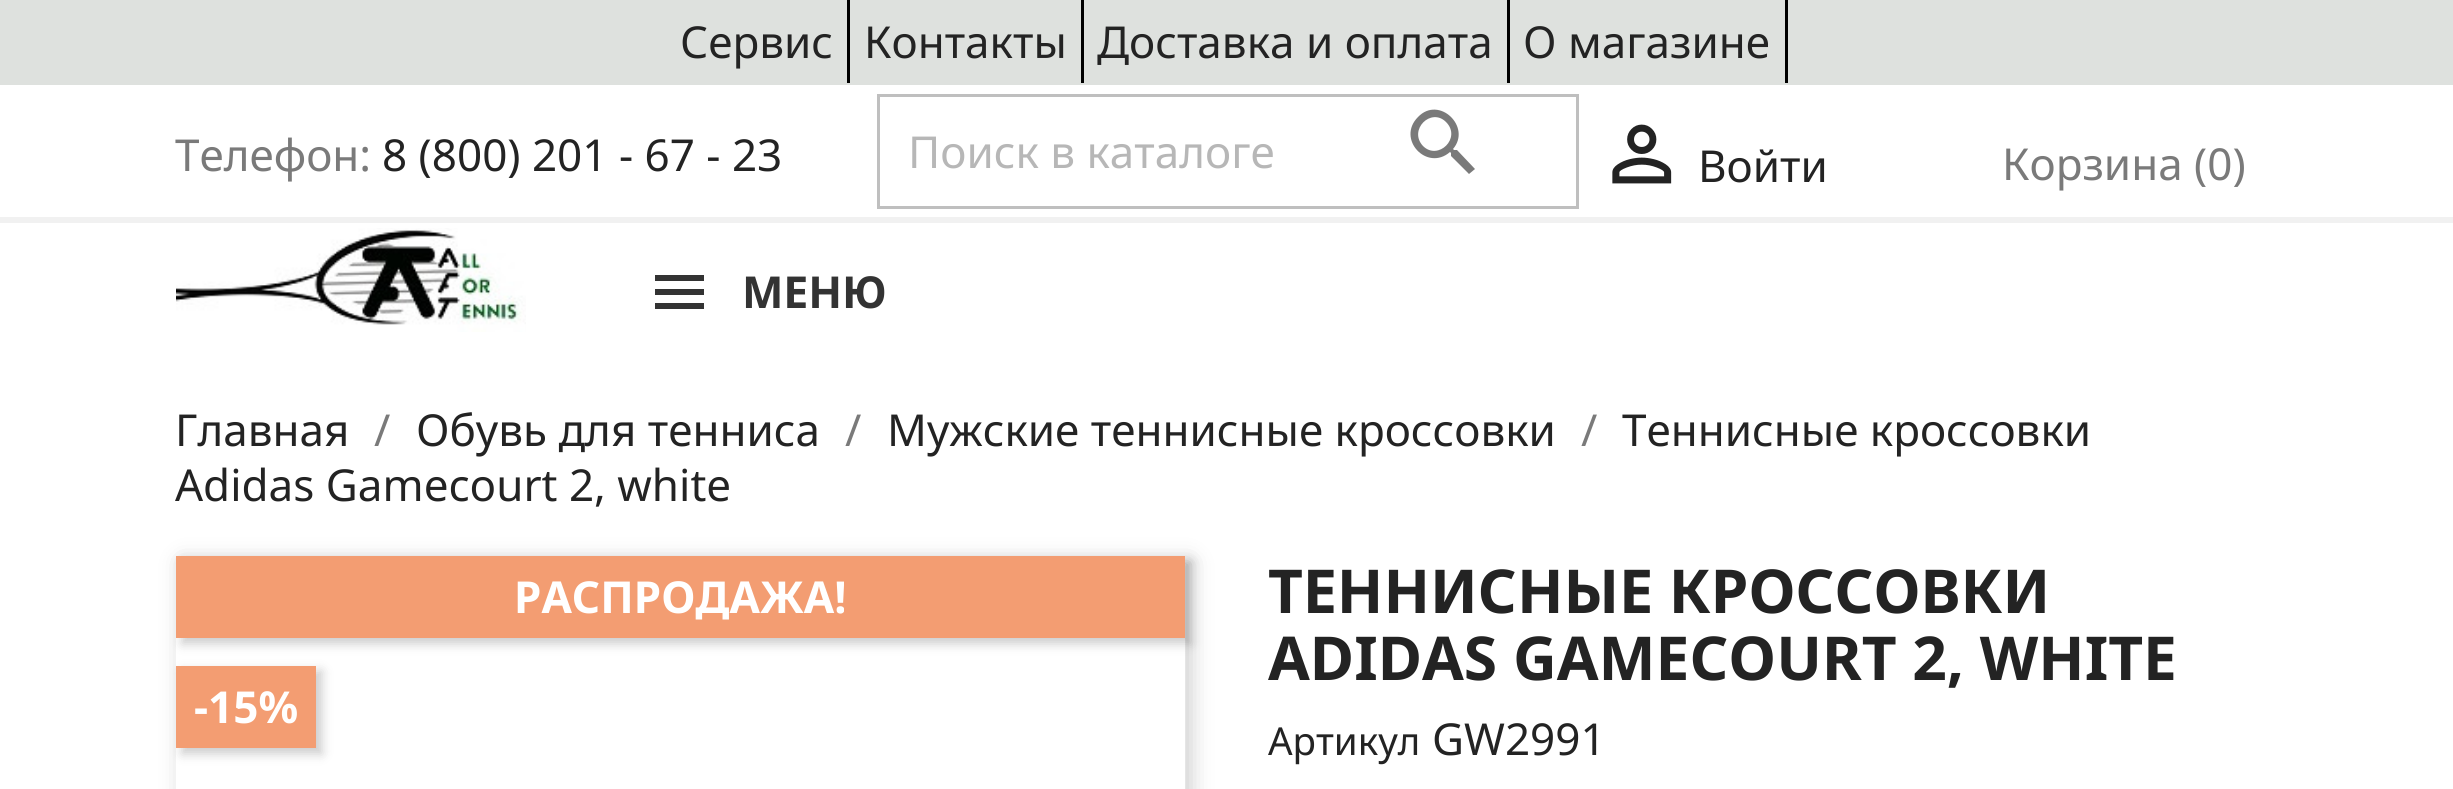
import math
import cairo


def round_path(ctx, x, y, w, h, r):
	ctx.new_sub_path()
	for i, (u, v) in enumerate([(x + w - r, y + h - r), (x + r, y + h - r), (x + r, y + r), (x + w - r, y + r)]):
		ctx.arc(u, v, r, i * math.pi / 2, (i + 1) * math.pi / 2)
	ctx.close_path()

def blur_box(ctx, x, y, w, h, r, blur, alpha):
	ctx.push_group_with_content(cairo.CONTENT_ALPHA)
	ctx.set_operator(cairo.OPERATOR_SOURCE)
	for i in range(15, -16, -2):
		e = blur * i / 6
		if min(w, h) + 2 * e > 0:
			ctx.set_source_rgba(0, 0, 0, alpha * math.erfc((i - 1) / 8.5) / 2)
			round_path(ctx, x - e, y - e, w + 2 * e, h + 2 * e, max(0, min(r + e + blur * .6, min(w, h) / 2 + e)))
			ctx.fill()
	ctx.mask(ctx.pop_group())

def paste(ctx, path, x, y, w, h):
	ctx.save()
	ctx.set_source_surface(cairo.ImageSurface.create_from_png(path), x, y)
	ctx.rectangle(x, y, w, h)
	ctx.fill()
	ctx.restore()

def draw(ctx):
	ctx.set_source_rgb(1, 1, 1)
	ctx.paint()
	ctx.set_source_rgb(0.871, 0.882, 0.871)
	ctx.rectangle(0, 0, 2453, 85)
	ctx.fill()
	ctx.set_source_rgb(0, 0, 0)
	ctx.rectangle(847, 0, 3, 83)
	ctx.fill()
	ctx.select_font_face('Noto Sans')
	ctx.set_font_size(44)
	ctx.set_source_rgb(0.137, 0.137, 0.137)
	ctx.move_to(680, 58)
	ctx.show_text('Сервис')
	ctx.set_source_rgb(0, 0, 0)
	ctx.rectangle(1081, 0, 3, 83)
	ctx.fill()
	ctx.set_source_rgb(0.137, 0.137, 0.137)
	ctx.move_to(864, 58)
	ctx.show_text('Контакты')
	ctx.set_source_rgb(0, 0, 0)
	ctx.rectangle(1507, 0, 3, 83)
	ctx.fill()
	ctx.set_source_rgb(0.137, 0.137, 0.137)
	ctx.move_to(1097, 58)
	ctx.show_text('Доставка и оплата')
	ctx.set_source_rgb(0, 0, 0)
	ctx.rectangle(1785, 0, 3, 83)
	ctx.fill()
	ctx.set_source_rgb(0.137, 0.137, 0.137)
	ctx.move_to(1523, 58)
	ctx.show_text('О магазине')
	ctx.set_source_rgb(0.945, 0.945, 0.945)
	ctx.rectangle(0, 217, 2453, 6)
	ctx.fill()
	ctx.set_source_rgb(0.478, 0.478, 0.478)
	ctx.move_to(175, 171)
	ctx.show_text('Телефон:')
	ctx.set_source_rgb(0.137, 0.137, 0.137)
	ctx.move_to(382, 171)
	ctx.show_text('8 (800) 201 - 67 - 23')
	ctx.rectangle(878.5, 95.5, 699, 112)
	ctx.set_source_rgb(0.749, 0.749, 0.749)
	ctx.set_line_width(3)
	ctx.stroke()
	ctx.set_source_rgb(0.718, 0.718, 0.718)
	ctx.move_to(908, 168)
	ctx.show_text('Поиск в каталоге')
	ctx.set_source_rgb(0.478, 0.478, 0.478)
	ctx.new_path()
	ctx.move_to(1423, 146)
	ctx.curve_to(1438, 161, 1462, 138, 1446, 122)
	ctx.curve_to(1431, 107, 1408, 130, 1423, 146)
	ctx.close_path()
	ctx.move_to(1457, 150)
	ctx.line_to(1475, 169)
	ctx.line_to(1469, 174)
	ctx.line_to(1451, 156)
	ctx.line_to(1451, 153)
	ctx.line_to(1450, 152)
	ctx.curve_to(1427, 172, 1396, 139, 1418, 117)
	ctx.curve_to(1439, 95, 1472, 127, 1453, 149)
	ctx.line_to(1454, 150)
	ctx.close_path()
	ctx.fill()
	paste(ctx, 'media/1.png', 1612, 124, 60, 60)
	ctx.set_source_rgb(0.137, 0.137, 0.137)
	ctx.move_to(1698, 182)
	ctx.show_text('Войти')
	ctx.set_source_rgb(0.478, 0.478, 0.478)
	ctx.move_to(2002, 180)
	ctx.show_text('Корзина (0)')
	paste(ctx, 'media/2.png', 176, 228, 350, 104)
	ctx.set_source_rgb(0.2, 0.2, 0.2)
	ctx.rectangle(655, 275, 49, 6)
	ctx.rectangle(655, 289, 49, 6)
	ctx.rectangle(655, 303, 49, 6)
	ctx.fill()
	ctx.select_font_face('Noto Sans', cairo.FONT_SLANT_NORMAL, cairo.FONT_WEIGHT_BOLD)
	ctx.move_to(742, 308)
	ctx.show_text('МЕНЮ')
	ctx.select_font_face('Noto Sans')
	ctx.set_source_rgb(0.137, 0.137, 0.137)
	ctx.move_to(175, 446)
	ctx.show_text('Главная')
	ctx.set_source_rgb(0.478, 0.478, 0.478)
	ctx.move_to(374, 446)
	ctx.show_text('/')
	ctx.set_source_rgb(0.137, 0.137, 0.137)
	ctx.move_to(416, 446)
	ctx.show_text('Обувь для тенниса')
	ctx.set_source_rgb(0.478, 0.478, 0.478)
	ctx.move_to(845, 446)
	ctx.show_text('/')
	ctx.set_source_rgb(0.137, 0.137, 0.137)
	ctx.move_to(887, 446)
	ctx.show_text('Мужские теннисные кроссовки')
	ctx.set_source_rgb(0.478, 0.478, 0.478)
	ctx.move_to(1581, 446)
	ctx.show_text('/')
	ctx.set_source_rgb(0.137, 0.137, 0.137)
	ctx.move_to(1622, 446)
	ctx.show_text('Теннисные кроссовки')
	ctx.move_to(175, 501)
	ctx.show_text('Adidas Gamecourt 2, white')
	ctx.save()
	ctx.set_fill_rule(cairo.FILL_RULE_EVEN_ODD)
	ctx.new_path()
	ctx.move_to(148, 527)
	ctx.line_to(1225, 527)
	ctx.line_to(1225, 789)
	ctx.line_to(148, 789)
	ctx.close_path()
	ctx.move_to(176, 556)
	ctx.line_to(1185, 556)
	ctx.line_to(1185, 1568)
	ctx.line_to(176, 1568)
	ctx.close_path()
	ctx.clip()
	ctx.set_source_rgb(0, 0, 0)
	blur_box(ctx, 182, 561, 1009, 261, 0, 11, 0.2)
	ctx.restore()
	ctx.set_source_rgba(1, 1, 1, 0.25)
	ctx.rectangle(1185, 564, 1, 225)
	ctx.fill()
	ctx.set_source_rgb(0, 0, 0)
	blur_box(ctx, 182, 561, 1009, 83, 0, 5.5, 0.2)
	ctx.set_source_rgb(0.953, 0.616, 0.447)
	ctx.rectangle(176, 556, 1009, 82)
	ctx.fill()
	ctx.select_font_face('Noto Sans', cairo.FONT_SLANT_NORMAL, cairo.FONT_WEIGHT_BOLD)
	ctx.set_source_rgb(1, 1, 1)
	ctx.move_to(514, 613)
	ctx.show_text('РАСПРОДАЖА!')
	ctx.set_source_rgb(0, 0, 0)
	blur_box(ctx, 182, 671, 140, 83, 0, 5.5, 0.2)
	ctx.set_source_rgb(0.953, 0.616, 0.447)
	ctx.rectangle(176, 666, 140, 82)
	ctx.fill()
	ctx.set_source_rgb(1, 1, 1)
	ctx.move_to(194, 723)
	ctx.show_text('-15%')
	ctx.set_font_size(60.5)
	ctx.set_source_rgb(0.137, 0.137, 0.137)
	ctx.move_to(1268, 613)
	ctx.show_text('ТЕННИСНЫЕ КРОССОВКИ')
	ctx.move_to(1268, 680)
	ctx.show_text('ADIDAS GAMECOURT 2, WHITE')
	ctx.select_font_face('Noto Sans')
	ctx.set_font_size(38.5)
	ctx.move_to(1268, 755)
	ctx.show_text('Артикул')
	ctx.set_font_size(44)
	ctx.move_to(1432, 755)
	ctx.show_text('GW2991')


surface = cairo.ImageSurface(cairo.FORMAT_RGB24, 2453, 789)
ctx = cairo.Context(surface)
options = cairo.FontOptions()
options.set_hint_metrics(cairo.HINT_METRICS_OFF)
options.set_hint_style(cairo.HINT_STYLE_NONE)
ctx.set_font_options(options)
ctx.set_miter_limit(4)
draw(ctx)
surface.write_to_png('image.png')
